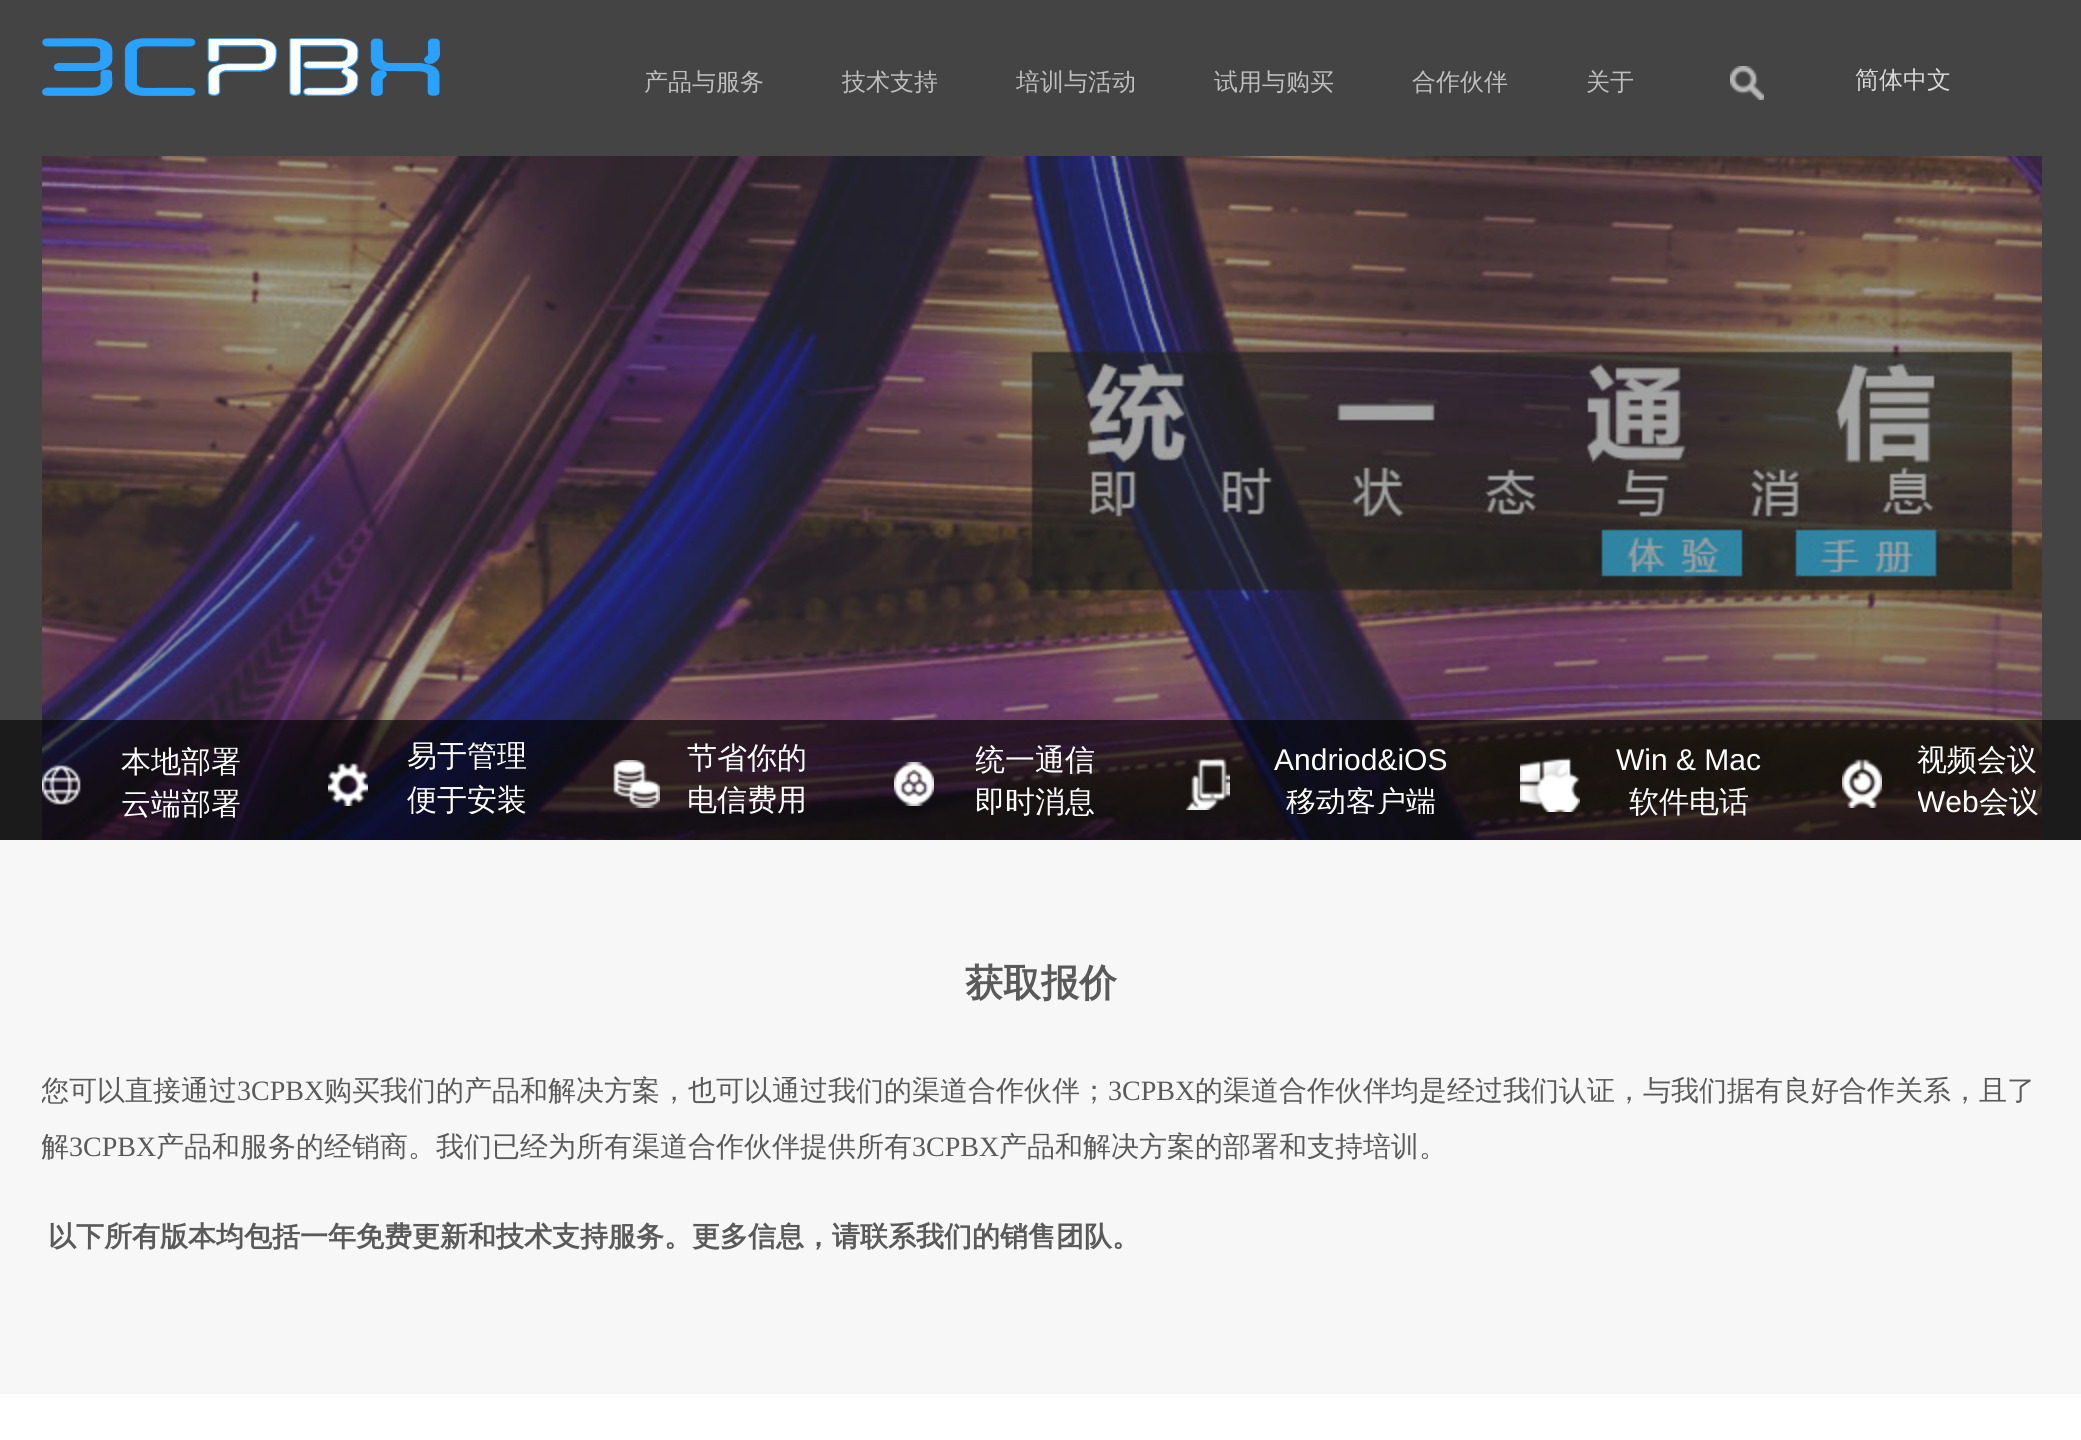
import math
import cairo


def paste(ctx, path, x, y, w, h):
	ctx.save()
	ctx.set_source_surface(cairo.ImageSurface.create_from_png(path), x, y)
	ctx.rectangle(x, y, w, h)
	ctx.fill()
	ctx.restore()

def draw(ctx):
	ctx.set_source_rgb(0.267, 0.267, 0.267)
	ctx.paint()
	paste(ctx, 'media/1.png', 42, 38, 398, 58)
	ctx.select_font_face('WenQuanYi Zen Hei Medium')
	ctx.set_font_size(24)
	ctx.set_source_rgb(0.745, 0.745, 0.745)
	for x, y, s in [
		(644, 90, '产品与服务'),
		(842, 90, '技术支持'),
		(1016, 90, '培训与活动'),
		(1214, 90, '试用与购买'),
		(1412, 90, '合作伙伴'),
		(1586, 90, '关于'),
	]:
		ctx.move_to(x, y)
		ctx.show_text(s)
	paste(ctx, 'media/2.png', 1730, 66, 34, 34)
	ctx.set_source_rgb(0.851, 0.851, 0.851)
	ctx.move_to(1855, 88)
	ctx.show_text('简体中文')
	paste(ctx, 'media/3.png', 42, 156, 2000, 684)
	ctx.set_source_rgba(0, 0, 0, 0.6)
	ctx.rectangle(0, 720, 2081, 120)
	ctx.fill()
	ctx.set_font_size(30)
	ctx.set_source_rgb(1, 1, 1)
	for x, y, s in [
		(121, 772, '本地部署'),
		(121, 814, '云端部署'),
		(407, 766, '易于管理'),
		(407, 810, '便于安装'),
		(687, 768, '节省你的'),
		(687, 810, '电信费用'),
	]:
		ctx.move_to(x, y)
		ctx.show_text(s)
	ctx.save()
	ctx.rectangle(976, 738, 156, 84)
	ctx.clip()
	ctx.move_to(975, 770)
	ctx.show_text('统一通信')
	ctx.restore()
	ctx.move_to(975, 812)
	ctx.show_text('即时消息')
	ctx.select_font_face('Liberation Sans')
	ctx.move_to(1274, 770)
	ctx.show_text('Andriod&iOS')
	ctx.save()
	ctx.rectangle(1256, 738, 212, 76)
	ctx.clip()
	ctx.select_font_face('WenQuanYi Zen Hei Medium')
	ctx.move_to(1286, 812)
	ctx.show_text('移动客户端')
	ctx.restore()
	ctx.move_to(1616, 770)
	ctx.show_text('Win & Mac')
	ctx.select_font_face('WenQuanYi Zen Hei Medium')
	ctx.move_to(1629, 812)
	ctx.show_text('软件电话')
	ctx.move_to(1917, 770)
	ctx.show_text('视频会议')
	ctx.save()
	ctx.rectangle(1918, 738, 124, 78)
	ctx.clip()
	ctx.select_font_face('Liberation Sans')
	ctx.move_to(1917, 812)
	ctx.show_text('Web')
	ctx.restore()
	ctx.move_to(1979, 812)
	ctx.show_text('会议')
	paste(ctx, 'media/4.png', 42, 765, 39, 40)
	paste(ctx, 'media/5.png', 328, 763, 40, 43)
	paste(ctx, 'media/6.png', 613, 760, 47, 48)
	paste(ctx, 'media/7.png', 894, 762, 40, 44)
	paste(ctx, 'media/8.png', 1186, 759, 44, 51)
	paste(ctx, 'media/9.png', 1520, 757, 60, 55)
	paste(ctx, 'media/10.png', 1842, 759, 40, 49)
	ctx.set_source_rgb(0.965, 0.965, 0.969)
	ctx.rectangle(0, 840, 2081, 554)
	ctx.fill()
	ctx.select_font_face('WenQuanYi Zen Hei', cairo.FONT_SLANT_NORMAL, cairo.FONT_WEIGHT_BOLD)
	ctx.set_font_size(38)
	ctx.set_source_rgb(0.353, 0.353, 0.353)
	ctx.move_to(965, 996)
	ctx.show_text('获取报价')
	ctx.save()
	ctx.rectangle(42, 958, 2000, 340)
	ctx.clip()
	ctx.select_font_face('WenQuanYi Zen Hei Medium')
	ctx.set_font_size(28)
	ctx.move_to(41, 1100)
	ctx.show_text('您可以直接通过')
	ctx.restore()
	ctx.select_font_face('Liberation Serif')
	ctx.set_font_size(28)
	ctx.move_to(237, 1100)
	ctx.show_text('3CPBX')
	ctx.select_font_face('WenQuanYi Zen Hei Medium')
	ctx.move_to(324, 1100)
	ctx.show_text('购买我们的产品和解决方案，也可以通过我们的渠道合作伙伴；')
	ctx.select_font_face('Liberation Serif')
	ctx.move_to(1108, 1100)
	ctx.show_text('3CPBX')
	ctx.select_font_face('WenQuanYi Zen Hei Medium')
	ctx.move_to(1195, 1100)
	ctx.show_text('的渠道合作伙伴均是经过我们认证，与我们据有良好合作关系，且了')
	ctx.save()
	ctx.rectangle(42, 958, 2000, 340)
	ctx.clip()
	ctx.move_to(41, 1156)
	ctx.show_text('解')
	ctx.restore()
	ctx.select_font_face('Liberation Serif')
	ctx.move_to(69, 1156)
	ctx.show_text('3CPBX')
	ctx.select_font_face('WenQuanYi Zen Hei Medium')
	ctx.move_to(156, 1156)
	ctx.show_text('产品和服务的经销商。我们已经为所有渠道合作伙伴提供所有')
	ctx.select_font_face('Liberation Serif')
	ctx.move_to(912, 1156)
	ctx.show_text('3CPBX')
	ctx.select_font_face('WenQuanYi Zen Hei Medium')
	ctx.move_to(999, 1156)
	ctx.show_text('产品和解决方案的部署和支持培训。')
	ctx.select_font_face('WenQuanYi Zen Hei', cairo.FONT_SLANT_NORMAL, cairo.FONT_WEIGHT_BOLD)
	ctx.move_to(48, 1246)
	ctx.show_text('以下所有版本均包括一年免费更新和技术支持服务。更多信息，请联系我们的销售团队。')
	ctx.set_source_rgb(1, 1, 1)
	ctx.rectangle(0, 1394, 2081, 46)
	ctx.fill()


surface = cairo.ImageSurface(cairo.FORMAT_RGB24, 2081, 1440)
ctx = cairo.Context(surface)
options = cairo.FontOptions()
options.set_hint_metrics(cairo.HINT_METRICS_OFF)
options.set_hint_style(cairo.HINT_STYLE_NONE)
ctx.set_font_options(options)
ctx.set_miter_limit(4)
draw(ctx)
surface.write_to_png('image.png')
